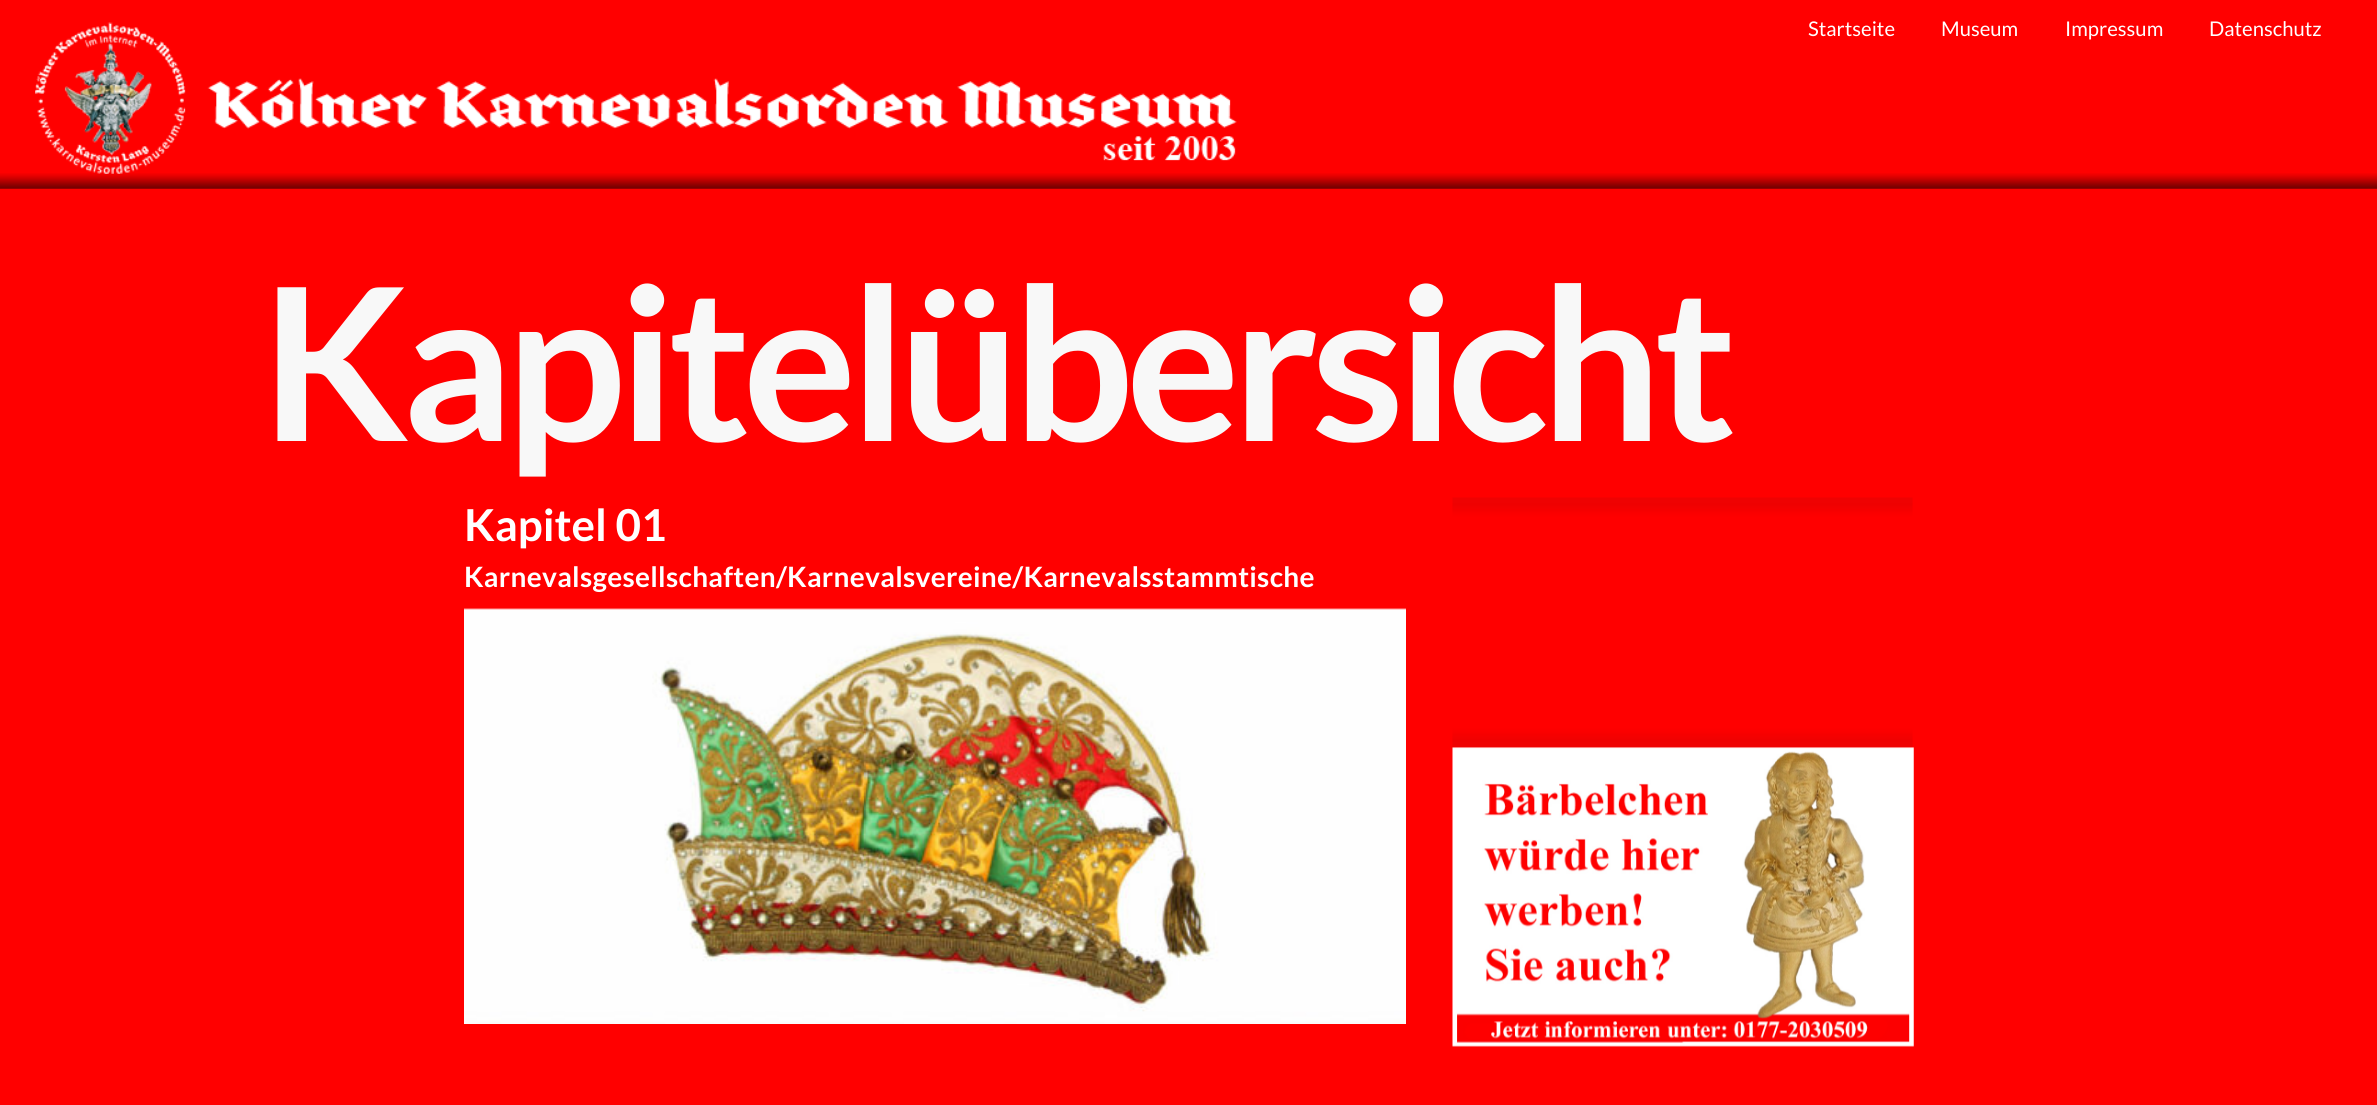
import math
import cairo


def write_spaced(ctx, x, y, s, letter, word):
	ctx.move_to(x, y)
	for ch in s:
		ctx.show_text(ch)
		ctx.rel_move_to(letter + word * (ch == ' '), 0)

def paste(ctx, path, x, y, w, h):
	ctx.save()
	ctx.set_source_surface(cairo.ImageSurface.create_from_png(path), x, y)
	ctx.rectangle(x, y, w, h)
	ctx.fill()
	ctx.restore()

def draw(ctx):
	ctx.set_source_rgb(1, 0, 0)
	ctx.paint()
	paste(ctx, 'media/1.png', 0, 173, 2377, 16)
	paste(ctx, 'media/2.png', 35, 22, 1202, 152)
	ctx.select_font_face('Lato')
	ctx.set_font_size(20.25)
	ctx.set_source_rgb(1, 1, 1)
	for x, y, s in [
		(1808, 36, 'Startseite'),
		(1941, 36, 'Museum'),
		(2065, 36, 'Impressum'),
		(2209, 36, 'Datenschutz'),
	]:
		ctx.move_to(x, y)
		ctx.show_text(s)
	ctx.select_font_face('Lato', cairo.FONT_SLANT_NORMAL, cairo.FONT_WEIGHT_BOLD)
	ctx.set_font_size(212.5)
	ctx.set_source_rgb(0.969, 0.969, 0.969)
	write_spaced(ctx, 261, 441, 'Kapitelübersicht', -7.5, 0)
	ctx.set_font_size(44)
	ctx.set_source_rgb(1, 1, 1)
	ctx.move_to(464, 541)
	ctx.show_text('Kapitel 01')
	ctx.set_font_size(28)
	write_spaced(ctx, 464, 587, 'Karnevalsgesellschaften/Karnevalsvereine/Karnevalsstammtische', 0.28, 0)
	paste(ctx, 'media/3.png', 464, 608, 942, 416)
	paste(ctx, 'media/4.png', 1452, 497, 461, 251)
	paste(ctx, 'media/5.png', 1452, 747, 462, 300)


surface = cairo.ImageSurface(cairo.FORMAT_RGB24, 2377, 1105)
ctx = cairo.Context(surface)
options = cairo.FontOptions()
options.set_hint_metrics(cairo.HINT_METRICS_OFF)
options.set_hint_style(cairo.HINT_STYLE_NONE)
ctx.set_font_options(options)
ctx.set_miter_limit(4)
draw(ctx)
surface.write_to_png('image.png')
